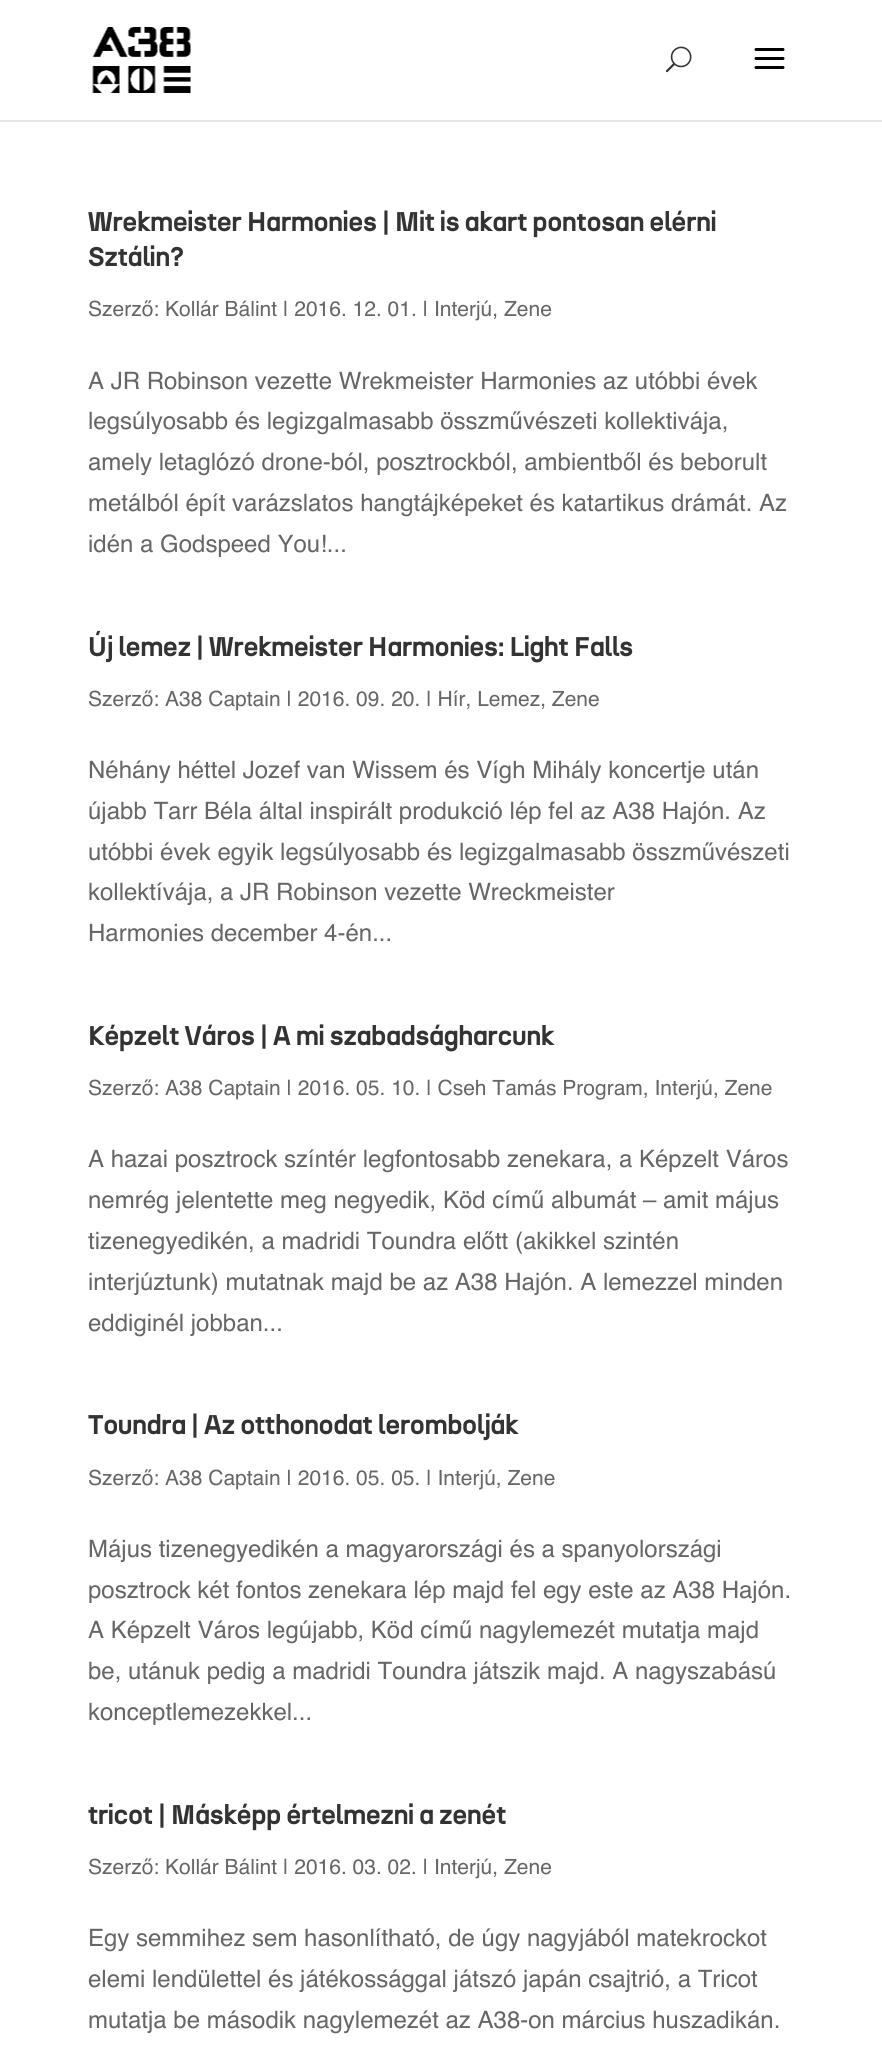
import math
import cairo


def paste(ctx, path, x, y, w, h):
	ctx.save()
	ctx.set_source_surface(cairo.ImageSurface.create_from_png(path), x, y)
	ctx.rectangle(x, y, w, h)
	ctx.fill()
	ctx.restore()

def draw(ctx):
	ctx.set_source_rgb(1, 1, 1)
	ctx.paint()
	ctx.set_source_rgb(0.902, 0.902, 0.902)
	ctx.rectangle(0, 120, 882, 2)
	ctx.fill()
	paste(ctx, 'media/1.png', 92, 27, 99, 66)
	paste(ctx, 'media/2.png', 665, 46, 27, 27)
	paste(ctx, 'media/3.png', 754, 48, 31, 21)
	ctx.select_font_face('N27', cairo.FONT_SLANT_NORMAL, cairo.FONT_WEIGHT_BOLD)
	ctx.set_font_size(27)
	ctx.set_source_rgb(0.2, 0.2, 0.2)
	ctx.move_to(88, 231)
	ctx.show_text('Wrekmeister Harmonies | Mit is akart pontosan elérni')
	ctx.move_to(88, 266)
	ctx.show_text('Sztálin?')
	ctx.select_font_face('Helvetica')
	ctx.set_font_size(21)
	ctx.set_source_rgb(0.4, 0.4, 0.4)
	ctx.move_to(88, 316)
	ctx.show_text('Szerző: Kollár Bálint | 2016. 12. 01. | Interjú, Zene')
	ctx.set_font_size(24)
	for x, y, s in [
		(88, 389, 'A JR Robinson vezette Wrekmeister Harmonies az utóbbi évek'),
		(88, 429, 'legsúlyosabb és legizgalmasabb összművészeti kollektivája,'),
		(88, 470, 'amely letaglózó drone-ból, posztrockból, ambientből és beborult'),
		(88, 511, 'metálból épít varázslatos hangtájképeket és katartikus drámát. Az'),
		(88, 552, 'idén a Godspeed You!...'),
	]:
		ctx.move_to(x, y)
		ctx.show_text(s)
	ctx.select_font_face('N27', cairo.FONT_SLANT_NORMAL, cairo.FONT_WEIGHT_BOLD)
	ctx.set_font_size(27)
	ctx.set_source_rgb(0.2, 0.2, 0.2)
	ctx.move_to(88, 656)
	ctx.show_text('Új lemez | Wrekmeister Harmonies: Light Falls')
	ctx.select_font_face('Helvetica')
	ctx.set_font_size(21)
	ctx.set_source_rgb(0.4, 0.4, 0.4)
	ctx.move_to(88, 706)
	ctx.show_text('Szerző: A38 Captain | 2016. 09. 20. | Hír, Lemez, Zene')
	ctx.set_font_size(24)
	for x, y, s in [
		(88, 778, 'Néhány héttel Jozef van Wissem és Vígh Mihály koncertje után'),
		(88, 819, 'újabb Tarr Béla által inspirált produkció lép fel az A38 Hajón. Az'),
		(88, 860, 'utóbbi évek egyik legsúlyosabb és legizgalmasabb összművészeti'),
		(88, 900, 'kollektívája, a JR Robinson vezette Wreckmeister'),
		(88, 941, 'Harmonies december 4-én...'),
	]:
		ctx.move_to(x, y)
		ctx.show_text(s)
	ctx.select_font_face('N27', cairo.FONT_SLANT_NORMAL, cairo.FONT_WEIGHT_BOLD)
	ctx.set_font_size(27)
	ctx.set_source_rgb(0.2, 0.2, 0.2)
	ctx.move_to(88, 1045)
	ctx.show_text('Képzelt Város | A mi szabadságharcunk')
	ctx.select_font_face('Helvetica')
	ctx.set_font_size(21)
	ctx.set_source_rgb(0.4, 0.4, 0.4)
	ctx.move_to(88, 1095)
	ctx.show_text('Szerző: A38 Captain | 2016. 05. 10. | Cseh Tamás Program, Interjú, Zene')
	ctx.set_font_size(24)
	for x, y, s in [
		(88, 1167, 'A hazai posztrock színtér legfontosabb zenekara, a Képzelt Város'),
		(88, 1208, 'nemrég jelentette meg negyedik, Köd című albumát – amit május'),
		(88, 1249, 'tizenegyedikén, a madridi Toundra előtt (akikkel szintén'),
		(88, 1290, 'interjúztunk) mutatnak majd be az A38 Hajón. A lemezzel minden'),
		(88, 1331, 'eddiginél jobban...'),
	]:
		ctx.move_to(x, y)
		ctx.show_text(s)
	ctx.select_font_face('N27', cairo.FONT_SLANT_NORMAL, cairo.FONT_WEIGHT_BOLD)
	ctx.set_font_size(27)
	ctx.set_source_rgb(0.2, 0.2, 0.2)
	ctx.move_to(88, 1434)
	ctx.show_text('Toundra | Az otthonodat lerombolják')
	ctx.select_font_face('Helvetica')
	ctx.set_font_size(21)
	ctx.set_source_rgb(0.4, 0.4, 0.4)
	ctx.move_to(88, 1485)
	ctx.show_text('Szerző: A38 Captain | 2016. 05. 05. | Interjú, Zene')
	ctx.set_font_size(24)
	for x, y, s in [
		(88, 1557, 'Május tizenegyedikén a magyarországi és a spanyolországi'),
		(88, 1598, 'posztrock két fontos zenekara lép majd fel egy este az A38 Hajón.'),
		(88, 1638, 'A Képzelt Város legújabb, Köd című nagylemezét mutatja majd'),
		(88, 1679, 'be, utánuk pedig a madridi Toundra játszik majd. A nagyszabású'),
		(88, 1720, 'konceptlemezekkel...'),
	]:
		ctx.move_to(x, y)
		ctx.show_text(s)
	ctx.select_font_face('N27', cairo.FONT_SLANT_NORMAL, cairo.FONT_WEIGHT_BOLD)
	ctx.set_font_size(27)
	ctx.set_source_rgb(0.2, 0.2, 0.2)
	ctx.move_to(88, 1824)
	ctx.show_text('tricot | Másképp értelmezni a zenét')
	ctx.select_font_face('Helvetica')
	ctx.set_font_size(21)
	ctx.set_source_rgb(0.4, 0.4, 0.4)
	ctx.move_to(88, 1874)
	ctx.show_text('Szerző: Kollár Bálint | 2016. 03. 02. | Interjú, Zene')
	ctx.set_font_size(24)
	for x, y, s in [
		(88, 1946, 'Egy semmihez sem hasonlítható, de úgy nagyjából matekrockot'),
		(88, 1987, 'elemi lendülettel és játékossággal játszó japán csajtrió, a Tricot'),
		(88, 2028, 'mutatja be második nagylemezét az A38-on március huszadikán.'),
	]:
		ctx.move_to(x, y)
		ctx.show_text(s)


surface = cairo.ImageSurface(cairo.FORMAT_RGB24, 882, 2063)
ctx = cairo.Context(surface)
options = cairo.FontOptions()
options.set_hint_metrics(cairo.HINT_METRICS_OFF)
options.set_hint_style(cairo.HINT_STYLE_NONE)
ctx.set_font_options(options)
ctx.set_miter_limit(4)
draw(ctx)
surface.write_to_png('image.png')
